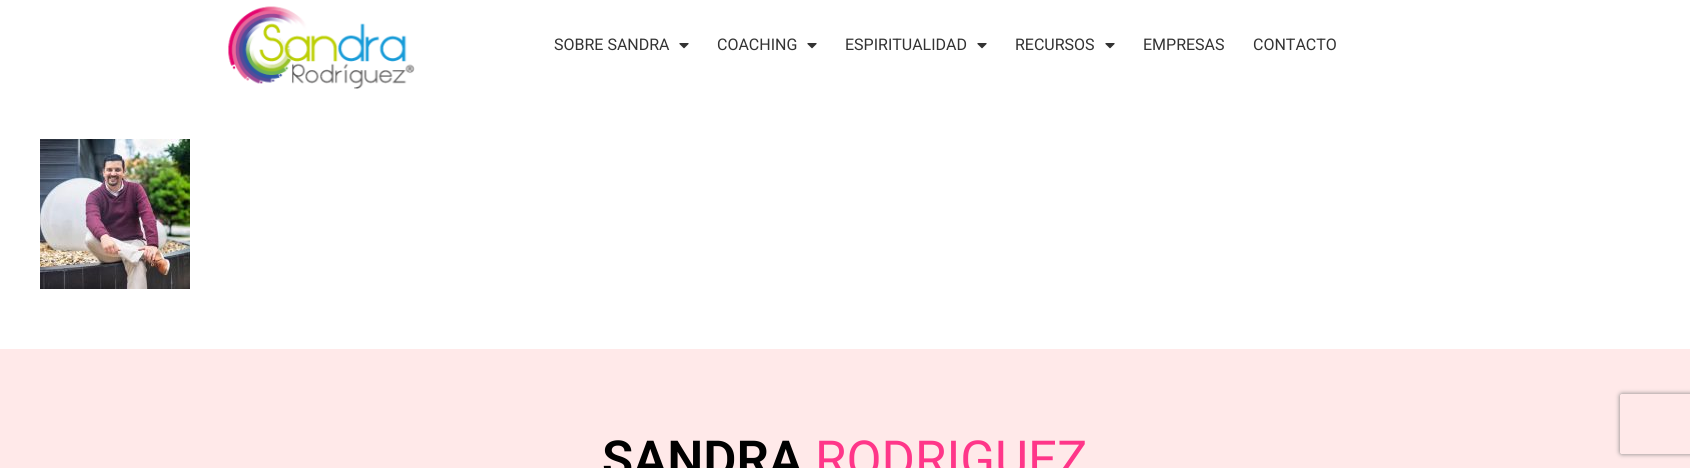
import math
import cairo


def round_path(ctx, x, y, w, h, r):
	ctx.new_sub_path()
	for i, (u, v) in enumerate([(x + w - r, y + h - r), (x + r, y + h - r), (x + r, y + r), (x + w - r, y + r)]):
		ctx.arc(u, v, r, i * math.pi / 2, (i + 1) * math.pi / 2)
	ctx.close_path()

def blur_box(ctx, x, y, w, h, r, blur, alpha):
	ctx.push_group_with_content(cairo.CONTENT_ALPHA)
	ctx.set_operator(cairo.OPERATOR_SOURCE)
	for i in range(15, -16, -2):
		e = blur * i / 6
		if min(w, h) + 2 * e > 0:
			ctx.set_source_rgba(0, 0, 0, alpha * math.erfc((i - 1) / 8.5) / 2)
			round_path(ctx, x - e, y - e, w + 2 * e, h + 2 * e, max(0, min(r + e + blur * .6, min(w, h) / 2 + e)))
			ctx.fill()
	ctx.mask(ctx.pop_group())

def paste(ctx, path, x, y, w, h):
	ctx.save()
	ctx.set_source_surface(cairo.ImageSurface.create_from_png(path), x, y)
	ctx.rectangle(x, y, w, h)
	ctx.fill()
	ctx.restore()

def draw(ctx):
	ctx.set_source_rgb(1, 1, 1)
	ctx.paint()
	paste(ctx, 'media/1.png', 228, 6, 187, 83)
	ctx.select_font_face('Roboto')
	ctx.set_font_size(16)
	ctx.set_source_rgb(0.2, 0.2, 0.2)
	ctx.move_to(554, 50)
	ctx.show_text('SOBRE SANDRA')
	paste(ctx, 'media/2.png', 679, 43, 10, 6)
	ctx.move_to(717, 50)
	ctx.show_text('COACHING')
	paste(ctx, 'media/2.png', 807, 43, 10, 6)
	ctx.move_to(845, 50)
	ctx.show_text('ESPIRITUALIDAD')
	paste(ctx, 'media/2.png', 977, 43, 10, 6)
	ctx.move_to(1015, 50)
	ctx.show_text('RECURSOS')
	paste(ctx, 'media/2.png', 1105, 43, 10, 6)
	ctx.move_to(1143, 50)
	ctx.show_text('EMPRESAS')
	ctx.move_to(1253, 50)
	ctx.show_text('CONTACTO')
	paste(ctx, 'media/3.png', 40, 139, 150, 150)
	ctx.set_source_rgb(1, 0.914, 0.914)
	ctx.rectangle(0, 349, 1690, 119)
	ctx.fill()
	ctx.select_font_face('Roboto SemiBold')
	ctx.set_font_size(51)
	ctx.set_source_rgb(0, 0, 0)
	ctx.move_to(602, 477)
	ctx.show_text('SANDRA')
	ctx.select_font_face('Roboto')
	ctx.set_source_rgb(1, 0.212, 0.537)
	ctx.move_to(815, 477)
	ctx.show_text('RODRIGUEZ')
	ctx.save()
	ctx.set_fill_rule(cairo.FILL_RULE_EVEN_ODD)
	ctx.new_path()
	ctx.move_to(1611, 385)
	ctx.line_to(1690, 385)
	ctx.line_to(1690, 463)
	ctx.line_to(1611, 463)
	ctx.close_path()
	ctx.move_to(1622, 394)
	ctx.line_to(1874, 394)
	ctx.curve_to(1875, 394, 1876, 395, 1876, 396)
	ctx.line_to(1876, 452)
	ctx.curve_to(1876, 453, 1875, 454, 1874, 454)
	ctx.line_to(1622, 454)
	ctx.curve_to(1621, 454, 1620, 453, 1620, 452)
	ctx.line_to(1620, 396)
	ctx.curve_to(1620, 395, 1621, 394, 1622, 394)
	ctx.close_path()
	ctx.clip()
	ctx.set_source_rgb(0.502, 0.502, 0.502)
	blur_box(ctx, 1620, 394, 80, 60, 2, 2.5, 1)
	ctx.restore()


surface = cairo.ImageSurface(cairo.FORMAT_RGB24, 1690, 468)
ctx = cairo.Context(surface)
options = cairo.FontOptions()
options.set_hint_metrics(cairo.HINT_METRICS_OFF)
options.set_hint_style(cairo.HINT_STYLE_NONE)
ctx.set_font_options(options)
ctx.set_miter_limit(4)
draw(ctx)
surface.write_to_png('image.png')
